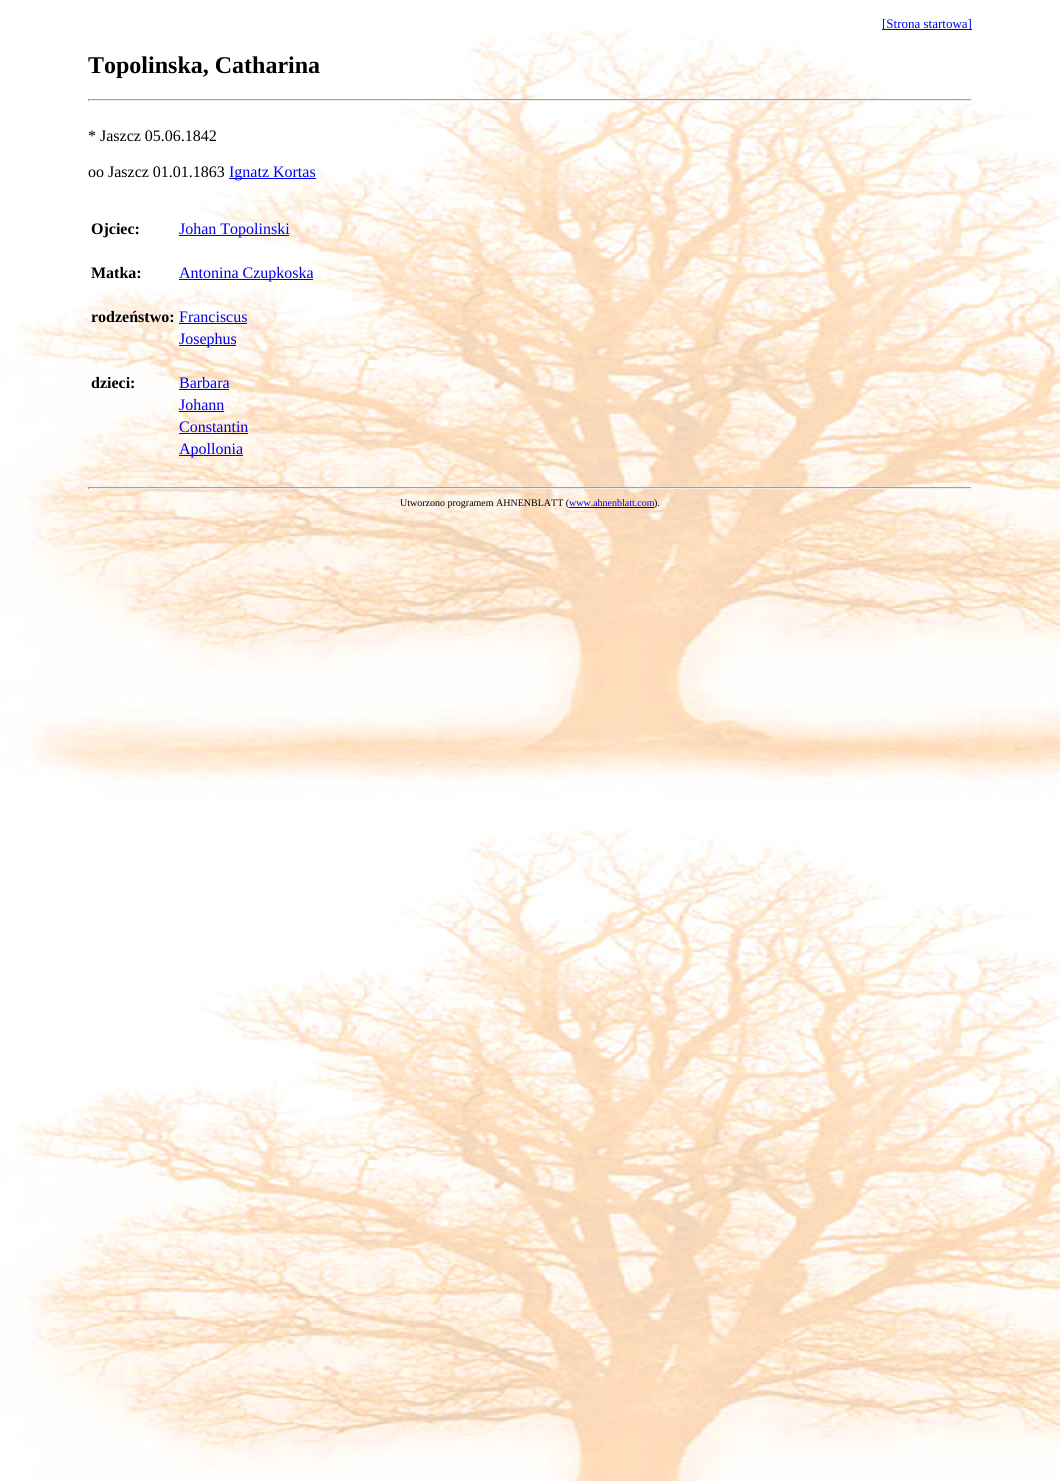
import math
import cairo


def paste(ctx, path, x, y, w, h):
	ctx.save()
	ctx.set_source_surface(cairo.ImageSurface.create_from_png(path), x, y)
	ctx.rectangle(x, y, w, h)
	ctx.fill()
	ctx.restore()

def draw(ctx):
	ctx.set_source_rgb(1, 1, 1)
	ctx.paint()
	paste(ctx, 'media/1.png', 0, 0, 1060, 1481)
	ctx.set_source_rgb(0, 0, 0.933)
	ctx.rectangle(882, 29, 90, 1)
	ctx.fill()
	ctx.select_font_face('Liberation Serif')
	ctx.set_font_size(13)
	ctx.move_to(882, 28)
	ctx.show_text('[Strona startowa]')
	ctx.select_font_face('Liberation Serif', cairo.FONT_SLANT_NORMAL, cairo.FONT_WEIGHT_BOLD)
	ctx.set_font_size(24)
	ctx.set_source_rgb(0, 0, 0)
	ctx.move_to(88, 73)
	ctx.show_text('Topolinska, Catharina')
	ctx.set_source_rgb(0.624, 0.624, 0.624)
	ctx.rectangle(88, 99, 884, 1)
	ctx.fill()
	ctx.set_source_rgb(0.933, 0.933, 0.933)
	ctx.rectangle(971, 99, 1, 2)
	ctx.rectangle(88, 100, 884, 1)
	ctx.fill()
	ctx.set_source_rgb(0.624, 0.624, 0.624)
	ctx.rectangle(88, 99, 1, 2)
	ctx.fill()
	ctx.select_font_face('Liberation Serif')
	ctx.set_font_size(16)
	ctx.set_source_rgb(0, 0, 0)
	ctx.move_to(88, 141)
	ctx.show_text('* Jaszcz 05.06.1842')
	ctx.move_to(88, 177)
	ctx.show_text('oo Jaszcz 01.01.1863')
	ctx.set_source_rgb(0, 0, 0.933)
	ctx.rectangle(229, 178, 87, 1)
	ctx.fill()
	ctx.move_to(229, 177)
	ctx.show_text('Ignatz Kortas')
	ctx.select_font_face('Liberation Serif', cairo.FONT_SLANT_NORMAL, cairo.FONT_WEIGHT_BOLD)
	ctx.set_source_rgb(0, 0, 0)
	ctx.move_to(91, 234)
	ctx.show_text('Ojciec:')
	ctx.set_source_rgb(0, 0, 0.933)
	ctx.rectangle(179, 235, 110, 1)
	ctx.fill()
	ctx.select_font_face('Liberation Serif')
	ctx.move_to(179, 234)
	ctx.show_text('Johan Topolinski')
	ctx.select_font_face('Liberation Serif', cairo.FONT_SLANT_NORMAL, cairo.FONT_WEIGHT_BOLD)
	ctx.set_source_rgb(0, 0, 0)
	ctx.move_to(91, 278)
	ctx.show_text('Matka:')
	ctx.set_source_rgb(0, 0, 0.933)
	ctx.rectangle(179, 279, 134, 1)
	ctx.fill()
	ctx.select_font_face('Liberation Serif')
	ctx.move_to(179, 278)
	ctx.show_text('Antonina Czupkoska')
	ctx.select_font_face('Liberation Serif', cairo.FONT_SLANT_NORMAL, cairo.FONT_WEIGHT_BOLD)
	ctx.set_source_rgb(0, 0, 0)
	ctx.move_to(91, 322)
	ctx.show_text('rodzeństwo:')
	ctx.select_font_face('Liberation Serif')
	ctx.set_source_rgb(0, 0, 0.933)
	ctx.move_to(179, 322)
	ctx.show_text('Franciscus')
	ctx.rectangle(179, 323, 68, 1)
	ctx.fill()
	ctx.rectangle(179, 345, 57, 1)
	ctx.fill()
	ctx.move_to(179, 344)
	ctx.show_text('Josephus')
	ctx.select_font_face('Liberation Serif', cairo.FONT_SLANT_NORMAL, cairo.FONT_WEIGHT_BOLD)
	ctx.set_source_rgb(0, 0, 0)
	ctx.move_to(91, 388)
	ctx.show_text('dzieci:')
	ctx.select_font_face('Liberation Serif')
	ctx.set_source_rgb(0, 0, 0.933)
	ctx.move_to(179, 388)
	ctx.show_text('Barbara')
	ctx.rectangle(179, 389, 50, 1)
	ctx.fill()
	ctx.move_to(179, 410)
	ctx.show_text('Johann')
	ctx.rectangle(179, 411, 45, 1)
	ctx.fill()
	ctx.move_to(179, 432)
	ctx.show_text('Constantin')
	ctx.rectangle(179, 433, 69, 1)
	ctx.fill()
	ctx.rectangle(179, 455, 64, 1)
	ctx.fill()
	ctx.move_to(179, 454)
	ctx.show_text('Apollonia')
	ctx.set_source_rgb(0.624, 0.624, 0.624)
	ctx.rectangle(88, 487, 884, 1)
	ctx.fill()
	ctx.set_source_rgb(0.933, 0.933, 0.933)
	ctx.rectangle(971, 487, 1, 2)
	ctx.rectangle(88, 488, 884, 1)
	ctx.fill()
	ctx.set_source_rgb(0.624, 0.624, 0.624)
	ctx.rectangle(88, 487, 1, 2)
	ctx.fill()
	ctx.set_font_size(10)
	ctx.set_source_rgb(0, 0, 0)
	ctx.move_to(400, 506)
	ctx.show_text('Utworzono programem AHNENBLATT (')
	ctx.set_source_rgb(0, 0, 0.933)
	ctx.rectangle(569, 507, 85, 1)
	ctx.fill()
	ctx.move_to(569, 506)
	ctx.show_text('www.ahnenblatt.com')
	ctx.set_source_rgb(0, 0, 0)
	ctx.move_to(654, 506)
	ctx.show_text(').')


surface = cairo.ImageSurface(cairo.FORMAT_RGB24, 1060, 1481)
ctx = cairo.Context(surface)
options = cairo.FontOptions()
options.set_hint_metrics(cairo.HINT_METRICS_OFF)
options.set_hint_style(cairo.HINT_STYLE_NONE)
ctx.set_font_options(options)
ctx.set_miter_limit(4)
draw(ctx)
surface.write_to_png('image.png')
